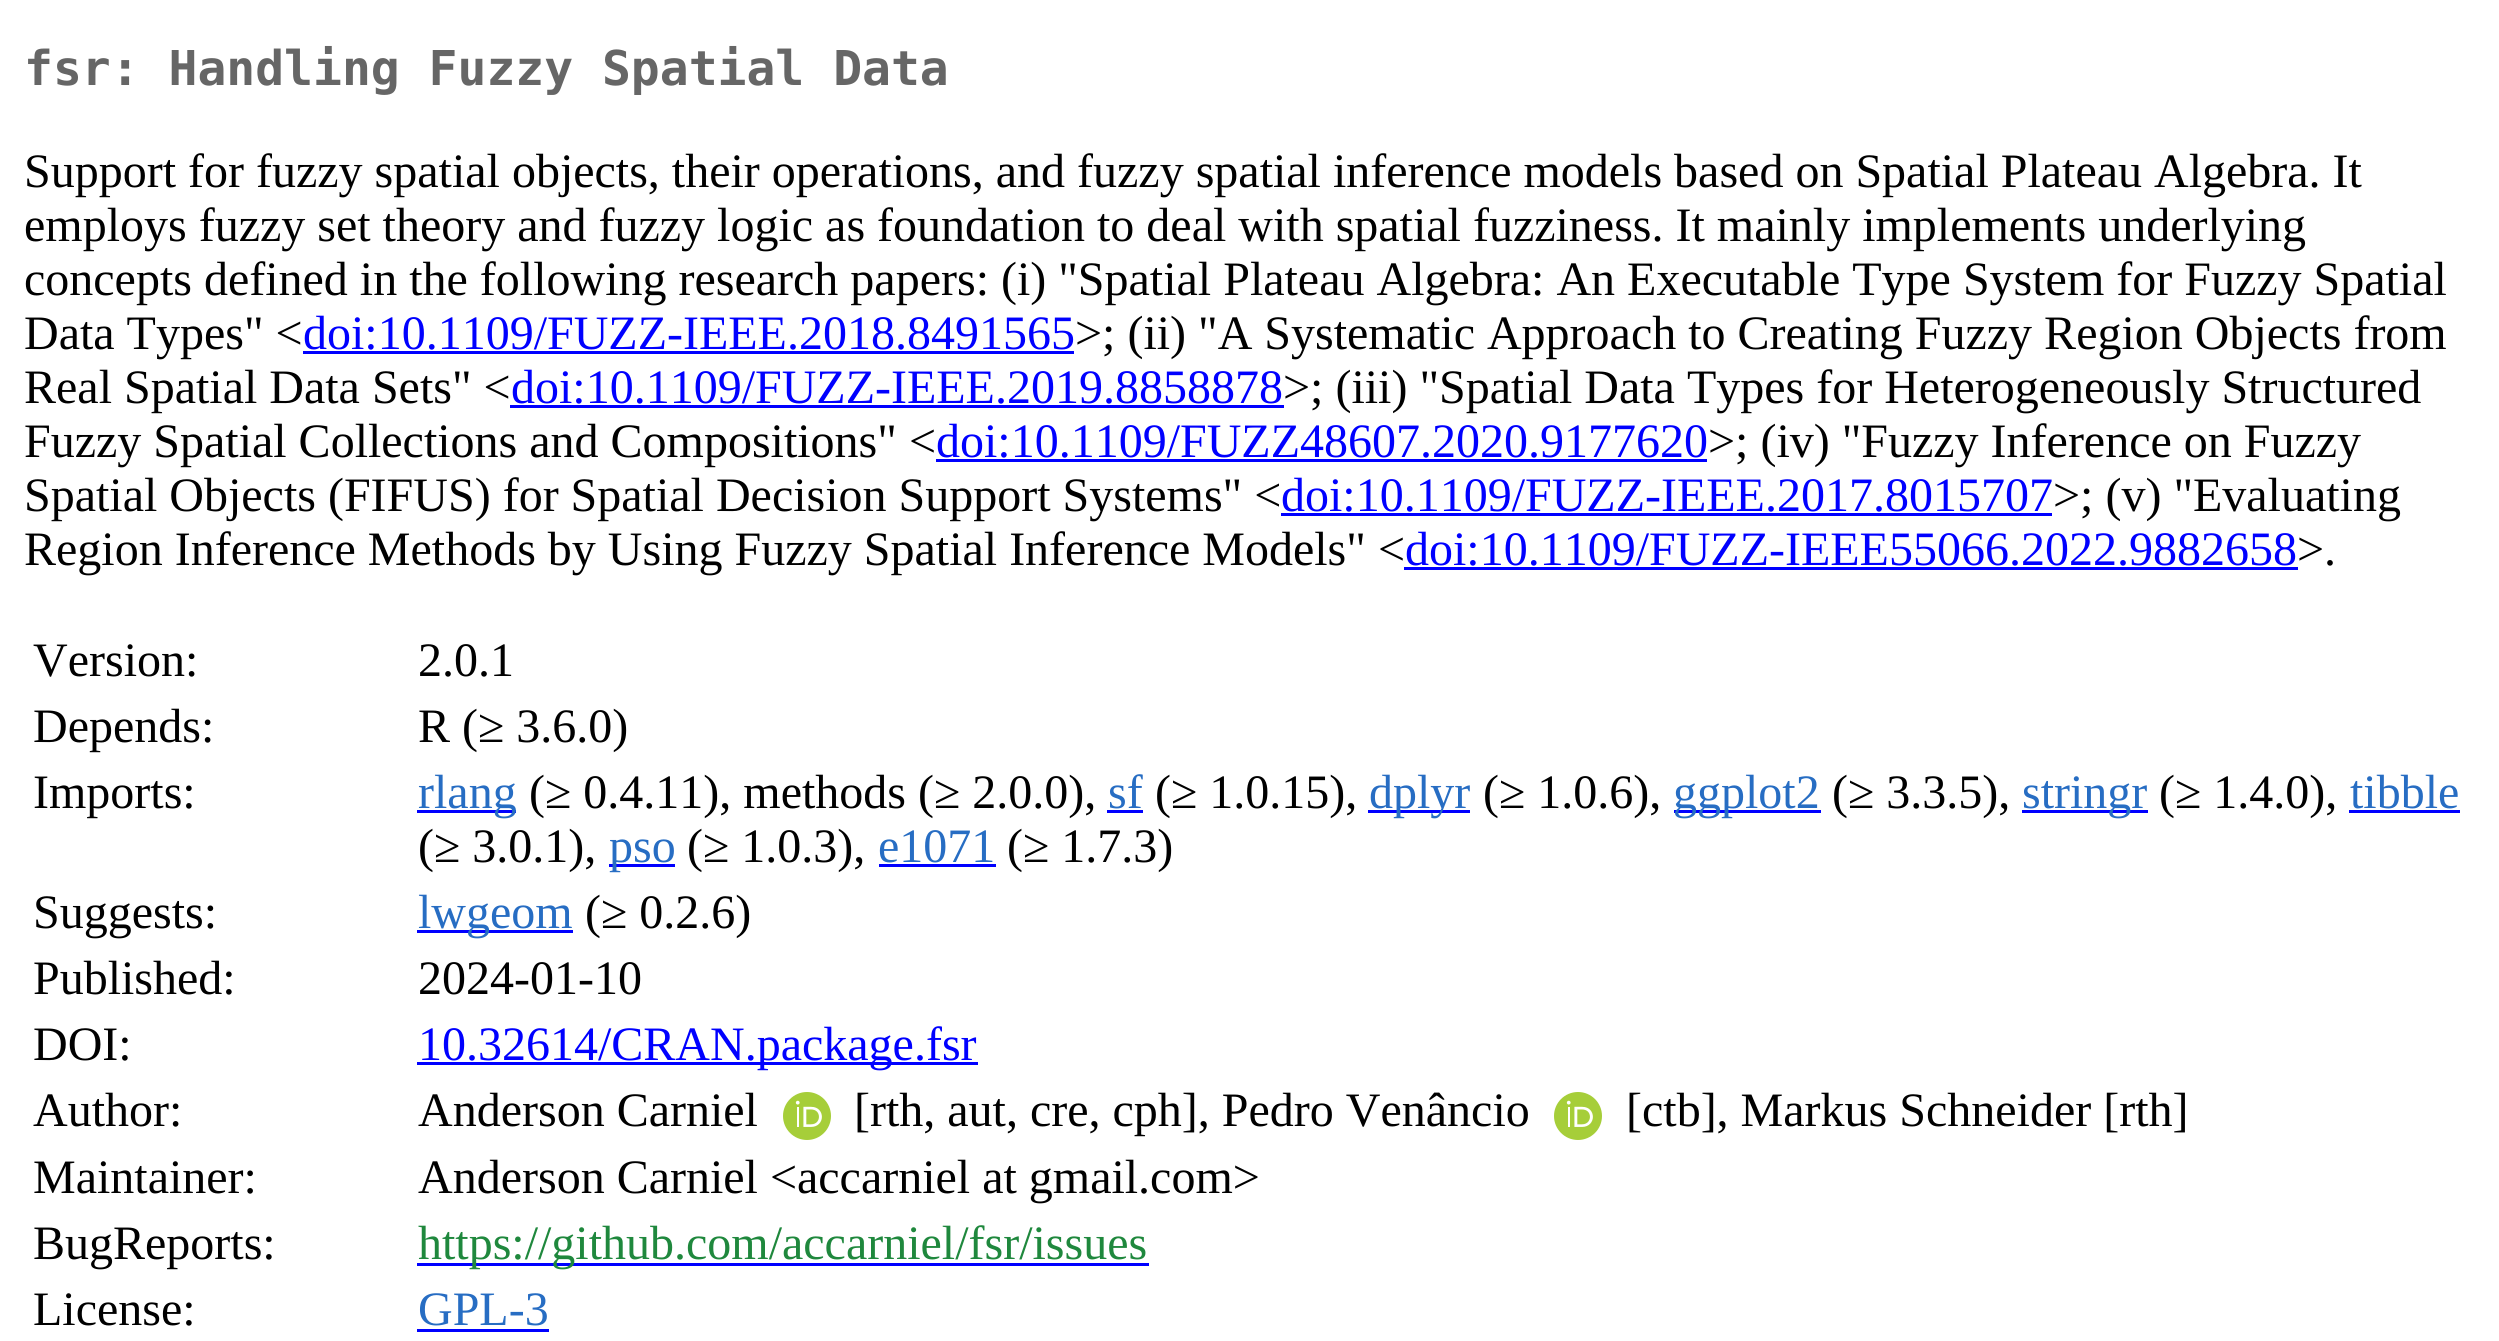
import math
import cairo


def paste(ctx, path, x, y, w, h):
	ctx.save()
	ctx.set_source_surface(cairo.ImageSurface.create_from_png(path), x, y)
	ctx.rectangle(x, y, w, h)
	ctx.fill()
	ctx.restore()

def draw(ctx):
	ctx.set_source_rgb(1, 1, 1)
	ctx.paint()
	ctx.select_font_face('DejaVu Sans Mono', cairo.FONT_SLANT_NORMAL, cairo.FONT_WEIGHT_BOLD)
	ctx.set_font_size(48)
	ctx.set_source_rgb(0.4, 0.4, 0.4)
	ctx.move_to(24, 85)
	ctx.show_text('fsr: Handling Fuzzy Spatial Data')
	ctx.select_font_face('Liberation Serif')
	ctx.set_source_rgb(0, 0, 0)
	for x, y, s in [
		(24, 187, 'Support for fuzzy spatial objects, their operations, and fuzzy spatial inference models based on Spatial Plateau Algebra. It'),
		(24, 241, 'employs fuzzy set theory and fuzzy logic as foundation to deal with spatial fuzziness. It mainly implements underlying'),
		(24, 295, 'concepts defined in the following research papers: (i) "Spatial Plateau Algebra: An Executable Type System for Fuzzy Spatial'),
		(24, 349, 'Data Types" <'),
	]:
		ctx.move_to(x, y)
		ctx.show_text(s)
	ctx.set_source_rgb(0, 0, 1)
	ctx.move_to(303, 349)
	ctx.show_text('doi:10.1109/FUZZ-IEEE.2018.8491565')
	ctx.rectangle(303, 351, 771, 3)
	ctx.fill()
	ctx.set_source_rgb(0, 0, 0)
	ctx.move_to(1075, 349)
	ctx.show_text('>; (ii) "A Systematic Approach to Creating Fuzzy Region Objects from')
	ctx.move_to(24, 403)
	ctx.show_text('Real Spatial Data Sets" <')
	ctx.set_source_rgb(0, 0, 1)
	ctx.move_to(511, 403)
	ctx.show_text('doi:10.1109/FUZZ-IEEE.2019.8858878')
	ctx.rectangle(510, 405, 774, 3)
	ctx.fill()
	ctx.set_source_rgb(0, 0, 0)
	ctx.move_to(1283, 403)
	ctx.show_text('>; (iii) "Spatial Data Types for Heterogeneously Structured')
	ctx.move_to(24, 457)
	ctx.show_text('Fuzzy Spatial Collections and Compositions" <')
	ctx.set_source_rgb(0, 0, 1)
	ctx.move_to(936, 457)
	ctx.show_text('doi:10.1109/FUZZ48607.2020.9177620')
	ctx.rectangle(936, 459, 771, 3)
	ctx.fill()
	ctx.set_source_rgb(0, 0, 0)
	ctx.move_to(1708, 457)
	ctx.show_text('>; (iv) "Fuzzy Inference on Fuzzy')
	ctx.move_to(24, 511)
	ctx.show_text('Spatial Objects (FIFUS) for Spatial Decision Support Systems" <')
	ctx.set_source_rgb(0, 0, 1)
	ctx.move_to(1281, 511)
	ctx.show_text('doi:10.1109/FUZZ-IEEE.2017.8015707')
	ctx.rectangle(1281, 513, 771, 3)
	ctx.fill()
	ctx.set_source_rgb(0, 0, 0)
	ctx.move_to(2053, 511)
	ctx.show_text('>; (v) "Evaluating')
	ctx.move_to(24, 565)
	ctx.show_text('Region Inference Methods by Using Fuzzy Spatial Inference Models" <')
	ctx.set_source_rgb(0, 0, 1)
	ctx.move_to(1405, 565)
	ctx.show_text('doi:10.1109/FUZZ-IEEE55066.2022.9882658')
	ctx.rectangle(1404, 567, 894, 3)
	ctx.fill()
	ctx.set_source_rgb(0, 0, 0)
	for x, y, s in [
		(2297, 565, '>.'),
		(33, 676, 'Version:'),
		(418, 676, '2.0.1'),
		(33, 742, 'Depends:'),
		(418, 742, 'R (≥ 3.6.0)'),
		(33, 808, 'Imports:'),
	]:
		ctx.move_to(x, y)
		ctx.show_text(s)
	ctx.set_source_rgb(0, 0, 1)
	ctx.rectangle(417, 810, 99, 3)
	ctx.fill()
	ctx.set_source_rgb(0.153, 0.427, 0.765)
	ctx.move_to(418, 808)
	ctx.show_text('rlang')
	ctx.set_source_rgb(0, 0, 0)
	ctx.move_to(529, 808)
	ctx.show_text('(≥ 0.4.11), methods (≥ 2.0.0),')
	ctx.set_source_rgb(0.153, 0.427, 0.765)
	ctx.move_to(1108, 808)
	ctx.show_text('sf')
	ctx.set_source_rgb(0, 0, 1)
	ctx.rectangle(1107, 810, 36, 3)
	ctx.fill()
	ctx.set_source_rgb(0, 0, 0)
	ctx.move_to(1155, 808)
	ctx.show_text('(≥ 1.0.15),')
	ctx.set_source_rgb(0, 0, 1)
	ctx.rectangle(1368, 810, 102, 3)
	ctx.fill()
	ctx.set_source_rgb(0.153, 0.427, 0.765)
	ctx.move_to(1369, 808)
	ctx.show_text('dplyr')
	ctx.set_source_rgb(0, 0, 0)
	ctx.move_to(1483, 808)
	ctx.show_text('(≥ 1.0.6),')
	ctx.set_source_rgb(0, 0, 1)
	ctx.rectangle(1674, 810, 147, 3)
	ctx.fill()
	ctx.set_source_rgb(0.153, 0.427, 0.765)
	ctx.move_to(1673, 808)
	ctx.show_text('ggplot2')
	ctx.set_source_rgb(0, 0, 0)
	ctx.move_to(1832, 808)
	ctx.show_text('(≥ 3.3.5),')
	ctx.set_source_rgb(0, 0, 1)
	ctx.rectangle(2022, 810, 126, 3)
	ctx.fill()
	ctx.set_source_rgb(0.153, 0.427, 0.765)
	ctx.move_to(2022, 808)
	ctx.show_text('stringr')
	ctx.set_source_rgb(0, 0, 0)
	ctx.move_to(2159, 808)
	ctx.show_text('(≥ 1.4.0),')
	ctx.set_source_rgb(0.153, 0.427, 0.765)
	ctx.move_to(2350, 808)
	ctx.show_text('tibble')
	ctx.set_source_rgb(0, 0, 1)
	ctx.rectangle(2349, 810, 111, 3)
	ctx.fill()
	ctx.set_source_rgb(0, 0, 0)
	ctx.move_to(418, 862)
	ctx.show_text('(≥ 3.0.1),')
	ctx.set_source_rgb(0, 0, 1)
	ctx.rectangle(609, 864, 66, 3)
	ctx.fill()
	ctx.set_source_rgb(0.153, 0.427, 0.765)
	ctx.move_to(609, 862)
	ctx.show_text('pso')
	ctx.set_source_rgb(0, 0, 0)
	ctx.move_to(687, 862)
	ctx.show_text('(≥ 1.0.3),')
	ctx.set_source_rgb(0.153, 0.427, 0.765)
	ctx.move_to(878, 862)
	ctx.show_text('e1071')
	ctx.set_source_rgb(0, 0, 1)
	ctx.rectangle(879, 864, 117, 3)
	ctx.fill()
	ctx.set_source_rgb(0, 0, 0)
	ctx.move_to(1007, 862)
	ctx.show_text('(≥ 1.7.3)')
	ctx.move_to(33, 928)
	ctx.show_text('Suggests:')
	ctx.set_source_rgb(0, 0, 1)
	ctx.rectangle(417, 930, 156, 3)
	ctx.fill()
	ctx.set_source_rgb(0.153, 0.427, 0.765)
	ctx.move_to(418, 928)
	ctx.show_text('lwgeom')
	ctx.set_source_rgb(0, 0, 0)
	for x, y, s in [
		(585, 928, '(≥ 0.2.6)'),
		(33, 994, 'Published:'),
		(418, 994, '2024-01-10'),
		(33, 1060, 'DOI:'),
	]:
		ctx.move_to(x, y)
		ctx.show_text(s)
	ctx.set_source_rgb(0, 0, 1)
	ctx.rectangle(417, 1062, 561, 3)
	ctx.fill()
	ctx.move_to(418, 1060)
	ctx.show_text('10.32614/CRAN.package.fsr')
	ctx.set_source_rgb(0, 0, 0)
	ctx.move_to(33, 1126)
	ctx.show_text('Author:')
	ctx.move_to(418, 1126)
	ctx.show_text('Anderson Carniel')
	paste(ctx, 'media/1.png', 783, 1092, 48, 48)
	ctx.move_to(854, 1126)
	ctx.show_text('[rth, aut, cre, cph], Pedro Venâncio')
	paste(ctx, 'media/1.png', 1554, 1092, 48, 48)
	for x, y, s in [
		(1626, 1126, '[ctb], Markus Schneider [rth]'),
		(33, 1193, 'Maintainer:'),
		(418, 1193, 'Anderson Carniel <accarniel at gmail.com>'),
		(33, 1259, 'BugReports:'),
	]:
		ctx.move_to(x, y)
		ctx.show_text(s)
	ctx.set_source_rgb(0, 0, 1)
	ctx.rectangle(417, 1263, 732, 3)
	ctx.fill()
	ctx.set_source_rgb(0.122, 0.533, 0.239)
	ctx.move_to(418, 1259)
	ctx.show_text('https://github.com/accarniel/fsr/issues')
	ctx.set_source_rgb(0, 0, 0)
	ctx.move_to(33, 1325)
	ctx.show_text('License:')
	ctx.set_source_rgb(0.153, 0.427, 0.765)
	ctx.move_to(418, 1325)
	ctx.show_text('GPL-3')
	ctx.set_source_rgb(0, 0, 1)
	ctx.rectangle(417, 1329, 132, 3)
	ctx.fill()


surface = cairo.ImageSurface(cairo.FORMAT_RGB24, 2499, 1341)
ctx = cairo.Context(surface)
options = cairo.FontOptions()
options.set_hint_metrics(cairo.HINT_METRICS_OFF)
options.set_hint_style(cairo.HINT_STYLE_NONE)
ctx.set_font_options(options)
ctx.set_miter_limit(4)
draw(ctx)
surface.write_to_png('image.png')
